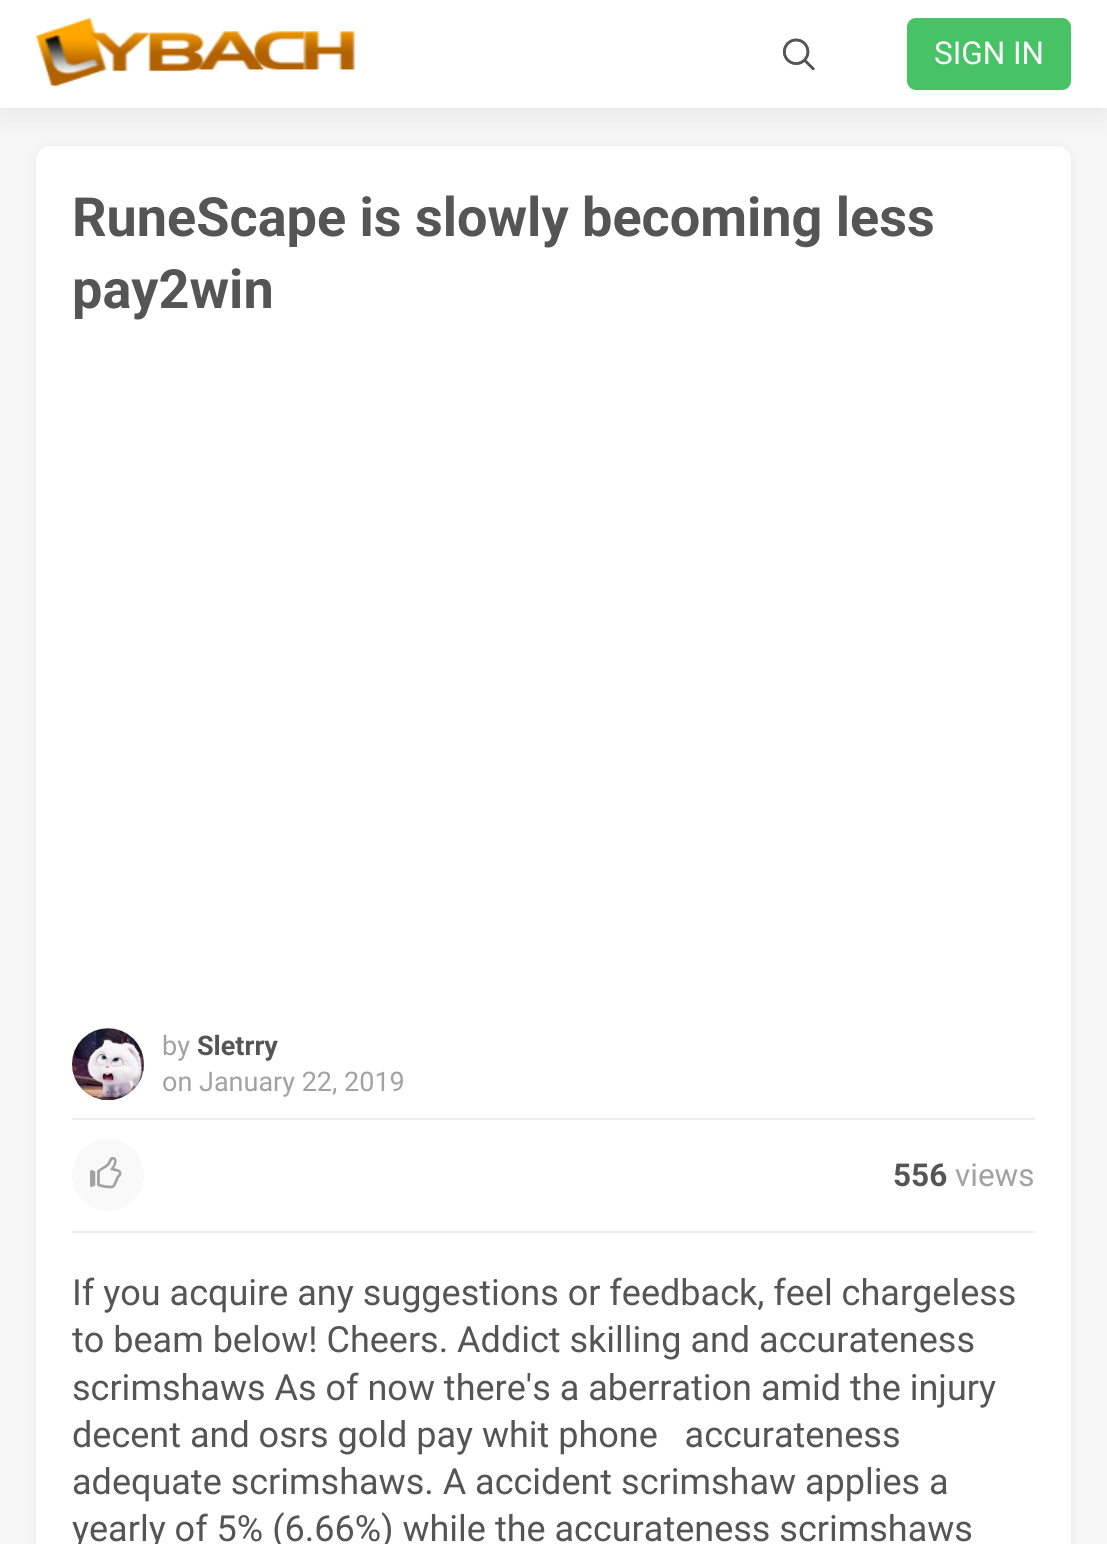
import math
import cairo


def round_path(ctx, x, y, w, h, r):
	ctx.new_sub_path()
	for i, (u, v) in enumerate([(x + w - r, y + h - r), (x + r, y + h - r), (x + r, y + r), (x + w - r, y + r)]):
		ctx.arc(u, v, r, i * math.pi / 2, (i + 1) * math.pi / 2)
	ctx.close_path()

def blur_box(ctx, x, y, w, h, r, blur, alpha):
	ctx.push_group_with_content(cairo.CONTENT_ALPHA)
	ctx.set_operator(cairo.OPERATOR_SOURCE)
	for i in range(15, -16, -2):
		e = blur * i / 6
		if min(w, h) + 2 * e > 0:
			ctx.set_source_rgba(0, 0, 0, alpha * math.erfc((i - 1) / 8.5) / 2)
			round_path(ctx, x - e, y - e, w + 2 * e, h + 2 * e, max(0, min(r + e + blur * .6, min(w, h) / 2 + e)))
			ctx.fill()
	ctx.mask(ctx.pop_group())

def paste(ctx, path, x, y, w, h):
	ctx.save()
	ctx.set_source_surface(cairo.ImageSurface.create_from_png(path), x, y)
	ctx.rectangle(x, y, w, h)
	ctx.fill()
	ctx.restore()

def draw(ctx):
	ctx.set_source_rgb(0.961, 0.961, 0.961)
	ctx.paint()
	ctx.set_source_rgb(0, 0, 0)
	blur_box(ctx, 36, 146, 1035, 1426, 14, 4.5, 0.05)
	ctx.set_source_rgb(1, 1, 1)
	round_path(ctx, 36, 146, 1035, 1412, 14)
	ctx.fill()
	ctx.set_source_rgb(0, 0, 0)
	blur_box(ctx, 0, 0, 1107, 108, 0, 18, 0.08)
	ctx.set_source_rgb(1, 1, 1)
	ctx.rectangle(0, 0, 1107, 108)
	ctx.fill()
	paste(ctx, 'media/1.png', 36, 18, 319, 68)
	paste(ctx, 'media/2.png', 783, 38, 32, 33)
	paste(ctx, 'media/3.png', 783, 38, 32, 33)
	ctx.set_source_rgb(0.278, 0.765, 0.4)
	round_path(ctx, 907, 18, 164, 72, 9)
	ctx.fill()
	ctx.select_font_face('Roboto')
	ctx.set_font_size(31.5)
	ctx.set_source_rgb(1, 1, 1)
	ctx.move_to(934, 64)
	ctx.show_text('SIGN IN')
	ctx.select_font_face('Roboto', cairo.FONT_SLANT_NORMAL, cairo.FONT_WEIGHT_BOLD)
	ctx.set_font_size(54)
	ctx.set_source_rgb(0.333, 0.333, 0.333)
	ctx.move_to(72, 236)
	ctx.show_text('RuneScape is slowly becoming less')
	ctx.move_to(72, 308)
	ctx.show_text('pay2win')
	ctx.set_source_rgb(0.933, 0.933, 0.933)
	ctx.rectangle(72, 1118, 963, 2)
	ctx.fill()
	ctx.set_source_rgb(0.863, 0.863, 0.863)
	ctx.arc(108, 1064, 36, 0, 2 * math.pi)
	ctx.fill()
	paste(ctx, 'media/4.png', 72, 1028, 72, 73)
	ctx.arc(108, 1064, 35, 0, 2 * math.pi)
	ctx.set_source_rgba(0, 0, 0, 0.1)
	ctx.stroke()
	ctx.select_font_face('Roboto')
	ctx.set_font_size(27)
	ctx.set_source_rgb(0.635, 0.635, 0.635)
	ctx.move_to(162, 1055)
	ctx.show_text('by')
	ctx.select_font_face('Roboto', cairo.FONT_SLANT_NORMAL, cairo.FONT_WEIGHT_BOLD)
	ctx.set_source_rgb(0.333, 0.333, 0.333)
	ctx.move_to(197, 1055)
	ctx.show_text('Sletrry')
	ctx.select_font_face('Roboto')
	ctx.set_source_rgb(0.635, 0.635, 0.635)
	ctx.move_to(162, 1091)
	ctx.show_text('on January 22, 2019')
	ctx.set_source_rgb(0.933, 0.933, 0.933)
	ctx.rectangle(72, 1231, 963, 2)
	ctx.fill()
	ctx.set_source_rgb(0.973, 0.973, 0.973)
	ctx.arc(108, 1175, 36, 0, 2 * math.pi)
	ctx.fill()
	paste(ctx, 'media/5.png', 90, 1156, 32, 33)
	ctx.select_font_face('Roboto', cairo.FONT_SLANT_NORMAL, cairo.FONT_WEIGHT_BOLD)
	ctx.set_font_size(31.5)
	ctx.set_source_rgb(0.333, 0.333, 0.333)
	ctx.move_to(893, 1186)
	ctx.show_text('556')
	ctx.select_font_face('Roboto')
	ctx.set_source_rgb(0.635, 0.635, 0.635)
	ctx.move_to(955, 1186)
	ctx.show_text('views')
	ctx.set_font_size(36)
	ctx.set_source_rgb(0.333, 0.333, 0.333)
	for x, y, s in [
		(72, 1305, 'If you acquire any suggestions or feedback, feel chargeless'),
		(72, 1352, 'to beam below! Cheers. Addict skilling and accurateness'),
		(72, 1400, 'scrimshaws As of now there\'s a aberration amid the injury'),
		(72, 1447, 'decent and osrs gold pay whit phone   accurateness'),
		(72, 1494, 'adequate scrimshaws. A accident scrimshaw applies a'),
		(72, 1541, 'yearly of 5% (6.66%) while the accurateness scrimshaws'),
	]:
		ctx.move_to(x, y)
		ctx.show_text(s)


surface = cairo.ImageSurface(cairo.FORMAT_RGB24, 1107, 1544)
ctx = cairo.Context(surface)
options = cairo.FontOptions()
options.set_hint_metrics(cairo.HINT_METRICS_OFF)
options.set_hint_style(cairo.HINT_STYLE_NONE)
ctx.set_font_options(options)
ctx.set_miter_limit(4)
draw(ctx)
surface.write_to_png('image.png')
